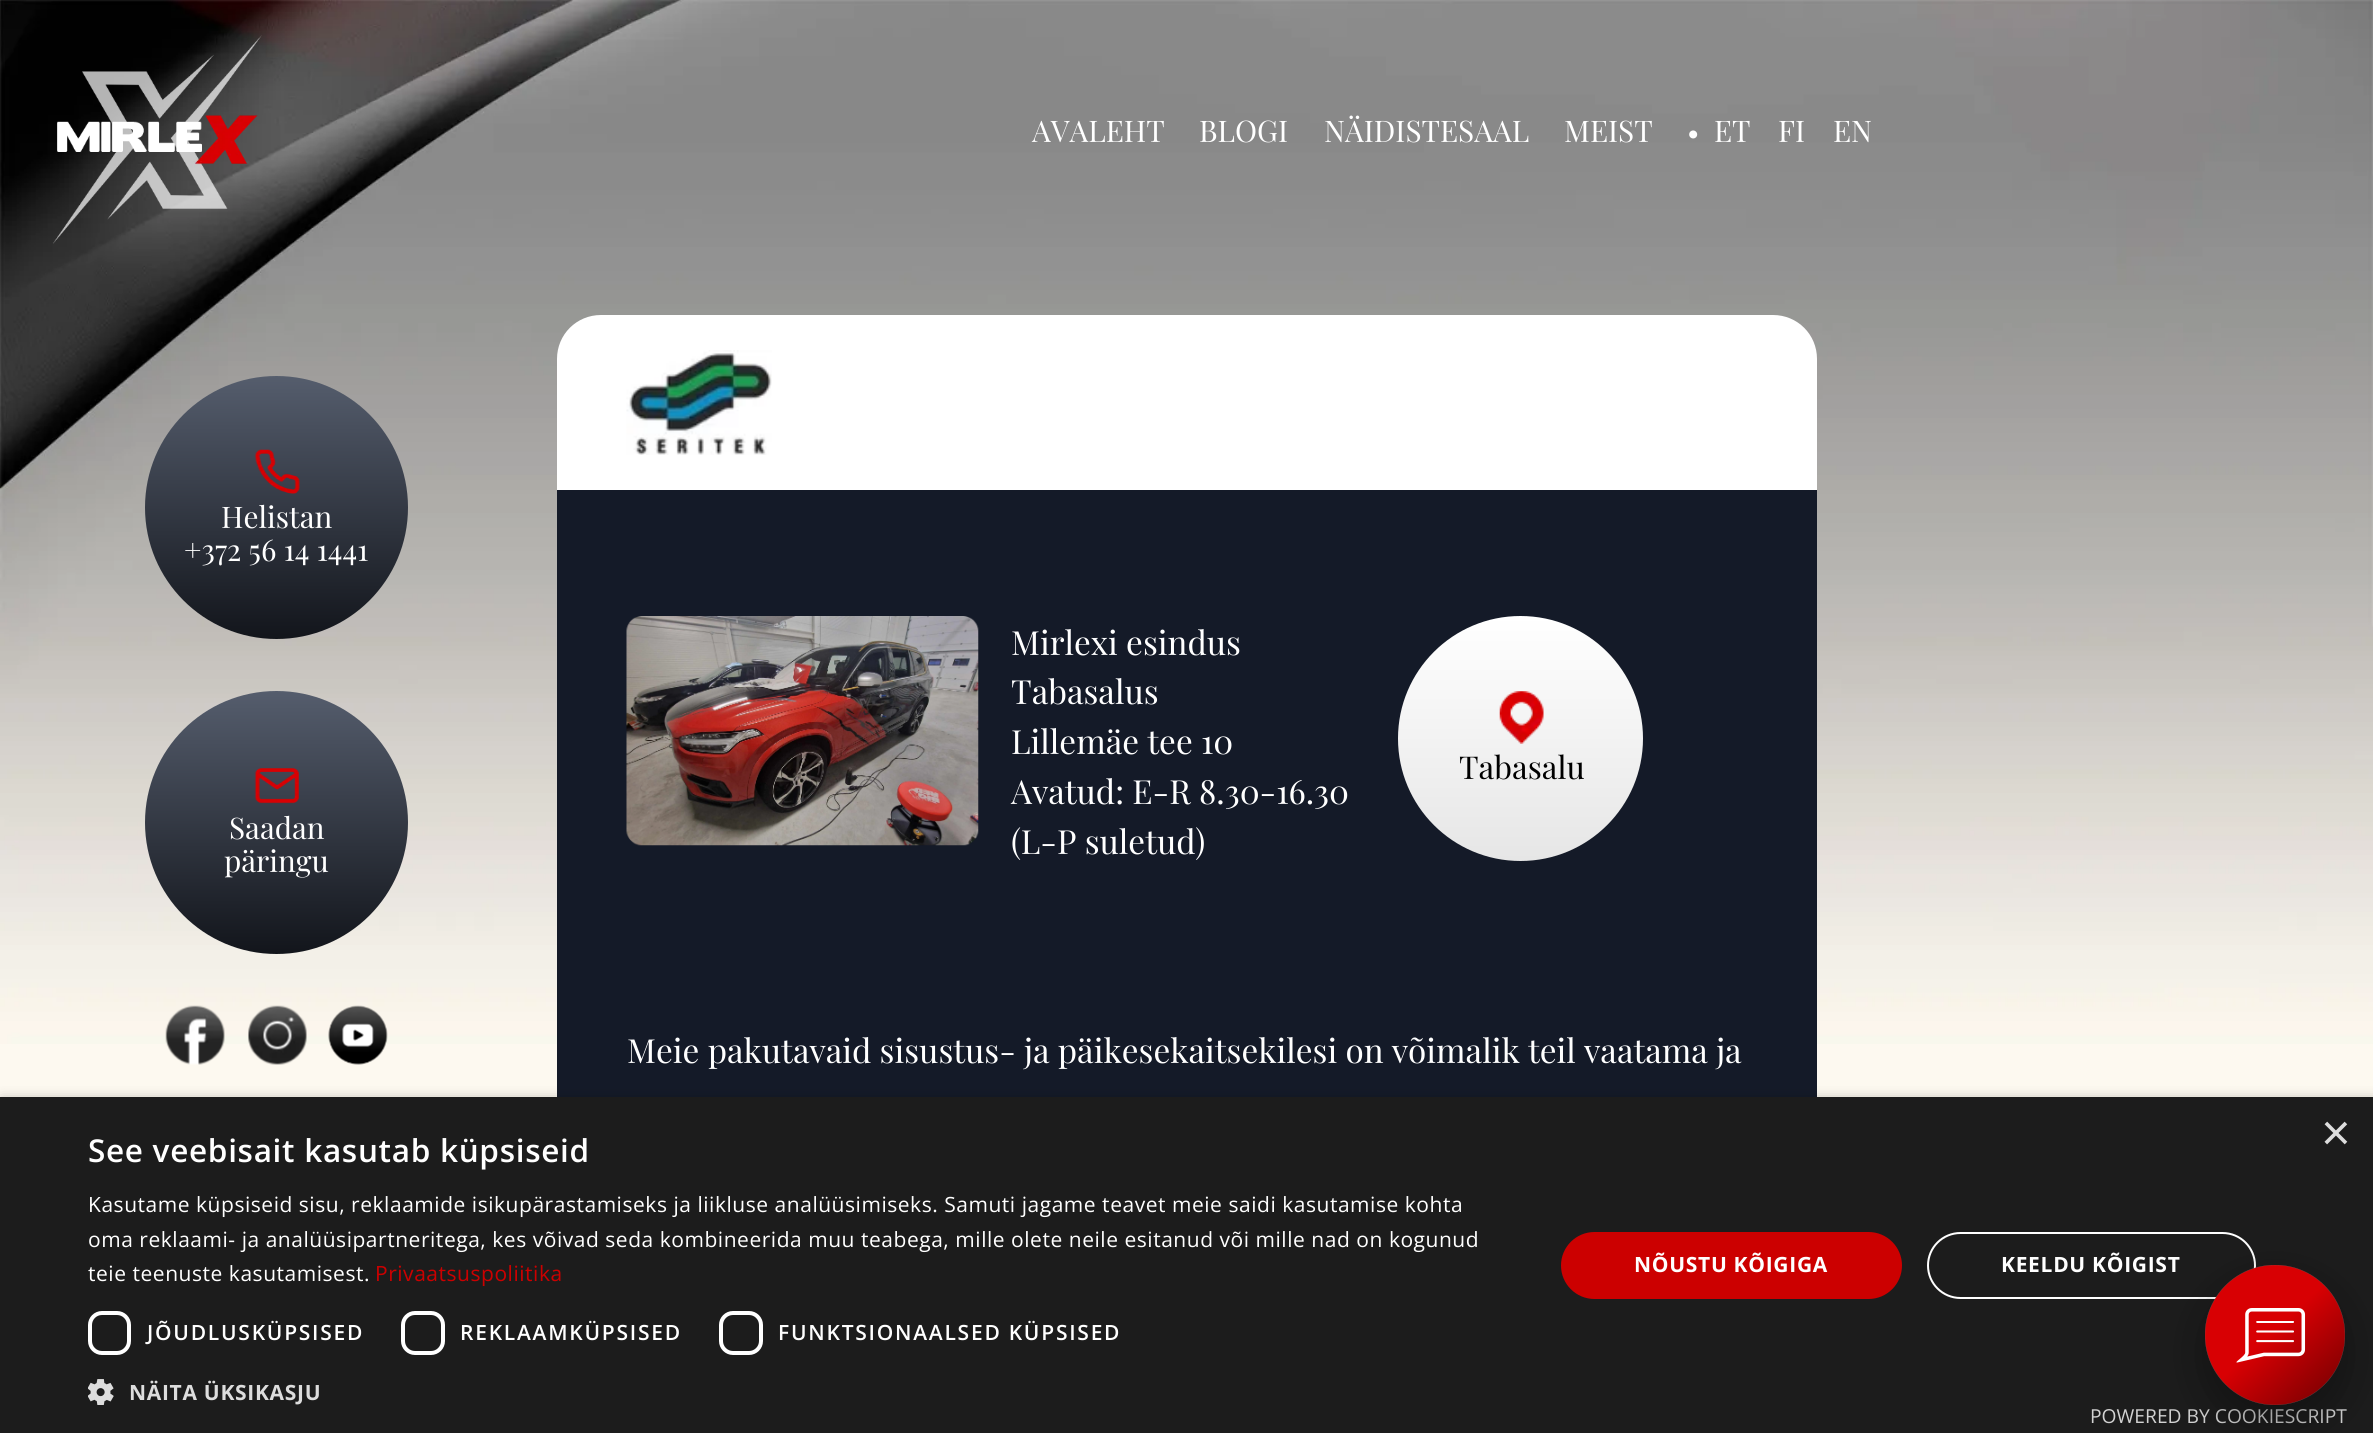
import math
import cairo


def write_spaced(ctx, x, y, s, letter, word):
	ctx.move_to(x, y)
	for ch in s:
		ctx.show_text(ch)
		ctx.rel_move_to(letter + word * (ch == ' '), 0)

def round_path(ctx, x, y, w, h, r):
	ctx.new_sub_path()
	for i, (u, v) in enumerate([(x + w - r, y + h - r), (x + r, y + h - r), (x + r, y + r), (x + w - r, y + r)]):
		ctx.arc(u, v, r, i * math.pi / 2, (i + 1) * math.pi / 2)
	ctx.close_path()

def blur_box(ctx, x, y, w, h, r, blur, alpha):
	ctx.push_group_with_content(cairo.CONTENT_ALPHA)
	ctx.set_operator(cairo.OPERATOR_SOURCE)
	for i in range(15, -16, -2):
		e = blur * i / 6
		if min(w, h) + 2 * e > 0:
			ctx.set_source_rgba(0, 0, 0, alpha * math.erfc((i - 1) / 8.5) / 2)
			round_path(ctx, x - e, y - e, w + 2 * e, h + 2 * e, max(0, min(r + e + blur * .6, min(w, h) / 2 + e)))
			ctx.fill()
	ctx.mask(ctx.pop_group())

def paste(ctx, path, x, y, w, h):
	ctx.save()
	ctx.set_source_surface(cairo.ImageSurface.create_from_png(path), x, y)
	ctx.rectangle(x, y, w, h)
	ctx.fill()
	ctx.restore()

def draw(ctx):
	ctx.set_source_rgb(0.992, 0.976, 0.941)
	ctx.paint()
	paste(ctx, 'media/1.png', 0, 0, 2373, 1044)
	paste(ctx, 'media/2.png', 53, 35, 209, 209)
	ctx.select_font_face('Playfair Display')
	ctx.set_font_size(29.75)
	ctx.set_source_rgb(1, 1, 1)
	for x, y, s in [
		(1032, 142, 'AVALEHT'),
		(1199, 142, 'BLOGI'),
		(1324, 142, 'NÄIDISTESAAL'),
		(1564, 142, 'MEIST'),
	]:
		ctx.move_to(x, y)
		ctx.show_text(s)
	ctx.set_font_size(28)
	ctx.move_to(1687, 142)
	ctx.show_text('•')
	ctx.set_font_size(29.75)
	for x, y, s in [
		(1714, 142, 'ET'),
		(1778, 142, 'FI'),
		(1833, 142, 'EN'),
	]:
		ctx.move_to(x, y)
		ctx.show_text(s)
	gradient = cairo.LinearGradient(277, 376, 277, 639)
	gradient.add_color_stop_rgba(0, 0.333, 0.365, 0.427, 1)
	gradient.add_color_stop_rgba(1, 0.071, 0.082, 0.106, 1)
	ctx.set_source(gradient)
	ctx.new_path()
	ctx.arc(276.5, 507.5, 131.5, 0, 2 * math.pi)
	ctx.fill()
	paste(ctx, 'media/3.png', 254, 449, 46, 45)
	ctx.set_source_rgb(1, 1, 1)
	ctx.move_to(221, 528)
	ctx.show_text('Helistan')
	ctx.move_to(184, 561)
	ctx.show_text('+372 56 14 1441')
	gradient = cairo.LinearGradient(277, 691, 277, 954)
	gradient.add_color_stop_rgba(0, 0.333, 0.365, 0.427, 1)
	gradient.add_color_stop_rgba(1, 0.071, 0.082, 0.106, 1)
	ctx.set_source(gradient)
	ctx.new_path()
	ctx.arc(276.5, 822.5, 131.5, 0, 2 * math.pi)
	ctx.fill()
	paste(ctx, 'media/4.png', 254, 768, 45, 36)
	ctx.set_source_rgb(1, 1, 1)
	ctx.move_to(229, 839)
	ctx.show_text('Saadan')
	ctx.move_to(224, 872)
	ctx.show_text('päringu')
	paste(ctx, 'media/5.png', 165, 1005, 60, 60)
	paste(ctx, 'media/6.png', 248, 1005, 59, 60)
	paste(ctx, 'media/7.png', 328, 1005, 60, 60)
	ctx.new_path()
	ctx.move_to(601, 315)
	ctx.line_to(1773, 315)
	ctx.curve_to(1797.5, 315, 1817, 334.5, 1817, 359)
	ctx.line_to(1817, 490)
	ctx.line_to(557, 490)
	ctx.line_to(557, 359)
	ctx.curve_to(557, 334.5, 576.5, 315, 601, 315)
	ctx.close_path()
	ctx.fill()
	paste(ctx, 'media/8.png', 626, 350, 146, 105)
	ctx.set_source_rgb(0.082, 0.102, 0.157)
	ctx.rectangle(557, 490, 1260, 607)
	ctx.fill()
	paste(ctx, 'media/9.png', 626, 616, 353, 230)
	ctx.set_font_size(33.25)
	ctx.set_source_rgb(1, 1, 1)
	for x, y, s in [
		(1011, 655, 'Mirlexi esindus'),
		(1011, 704, 'Tabasalus'),
		(1011, 754, 'Lillemäe tee 10'),
		(1011, 804, 'Avatud: E-R 8.30-16.30'),
		(1011, 854, '(L-P suletud)'),
	]:
		ctx.move_to(x, y)
		ctx.show_text(s)
	gradient = cairo.LinearGradient(1521, 616, 1521, 861)
	gradient.add_color_stop_rgba(0, 1, 1, 1, 1)
	gradient.add_color_stop_rgba(1, 0.902, 0.902, 0.902, 1)
	ctx.set_source(gradient)
	ctx.new_path()
	ctx.arc(1520.5, 738.5, 122.5, 0, 2 * math.pi)
	ctx.fill()
	paste(ctx, 'media/10.png', 1499, 691, 45, 53)
	ctx.set_font_size(31.5)
	ctx.set_source_rgb(0, 0, 0)
	ctx.move_to(1459, 779)
	ctx.show_text('Tabasalu')
	ctx.set_font_size(33.25)
	ctx.set_source_rgb(1, 1, 1)
	ctx.move_to(627, 1063)
	ctx.show_text('Meie pakutavaid sisustus- ja päikesekaitsekilesi on võimalik teil vaatama ja')
	ctx.set_source_rgb(0, 0, 0)
	blur_box(ctx, 2, 1101, 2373, 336, 0, 7, 0.35)
	ctx.set_source_rgb(0.11, 0.11, 0.11)
	ctx.rectangle(0, 1097, 2373, 336)
	ctx.fill()
	ctx.select_font_face('Liberation Sans')
	ctx.set_font_size(51)
	ctx.set_source_rgb(0.867, 0.867, 0.867)
	ctx.move_to(2321, 1150)
	ctx.show_text('×')
	ctx.select_font_face('Open Sans SemiBold')
	ctx.set_font_size(31.5)
	ctx.set_source_rgb(1, 1, 1)
	write_spaced(ctx, 88, 1162, 'See veebisait kasutab küpsiseid', 0.7, 0)
	ctx.select_font_face('Open Sans')
	ctx.set_font_size(21)
	for x, y, s in [
		(88, 1212, 'Kasutame küpsiseid sisu, reklaamide isikupärastamiseks ja liikluse analüüsimiseks. Samuti jagame teavet meie saidi kasutamise kohta'),
		(88, 1247, 'oma reklaami- ja analüüsipartneritega, kes võivad seda kombineerida muu teabega, mille olete neile esitanud või mille nad on kogunud'),
		(88, 1281, 'teie teenuste kasutamisest.'),
	]:
		write_spaced(ctx, x, y, s, 0.53, 0)
	ctx.set_source_rgb(0.8, 0, 0)
	write_spaced(ctx, 375, 1281, 'Privaatsuspoliitika', 0.53, 0)
	round_path(ctx, 90, 1313, 39, 40, 12)
	ctx.set_source_rgb(1, 1, 1)
	ctx.set_line_width(4)
	ctx.stroke()
	ctx.select_font_face('Open Sans SemiBold')
	write_spaced(ctx, 147, 1340, 'JÕUDLUSKÜPSISED', 1.75, 0)
	round_path(ctx, 403, 1313, 40, 40, 12)
	ctx.stroke()
	write_spaced(ctx, 460, 1340, 'REKLAAMKÜPSISED', 1.75, 0)
	round_path(ctx, 721, 1313, 40, 40, 12)
	ctx.stroke()
	write_spaced(ctx, 778, 1340, 'FUNKTSIONAALSED KÜPSISED', 1.75, 0)
	paste(ctx, 'media/11.png', 88, 1379, 26, 26)
	ctx.select_font_face('Open Sans', cairo.FONT_SLANT_NORMAL, cairo.FONT_WEIGHT_BOLD)
	ctx.set_source_rgb(0.867, 0.867, 0.867)
	write_spaced(ctx, 129, 1400, 'NÄITA ÜKSIKASJU', 0.7, 0)
	ctx.set_source_rgb(0.8, 0, 0)
	round_path(ctx, 1561, 1232, 341, 67, 33.5)
	ctx.fill()
	ctx.set_source_rgb(1, 1, 1)
	write_spaced(ctx, 1634, 1272, 'NÕUSTU KÕIGIGA', 0.7, 0)
	round_path(ctx, 1928, 1233, 327, 65, 32.5)
	ctx.set_line_width(2)
	ctx.stroke()
	write_spaced(ctx, 2001, 1272, 'KEELDU KÕIGIST', 0.7, 0)
	ctx.select_font_face('Open Sans')
	ctx.set_font_size(19.25)
	ctx.set_source_rgb(0.824, 0.824, 0.824)
	ctx.move_to(2090, 1423)
	ctx.show_text('POWERED BY COOKIESCRIPT')
	ctx.set_source_rgb(0, 0, 0)
	blur_box(ctx, 2205, 1283, 140, 140, 70, 21, 0.35)
	paste(ctx, 'media/12.png', 2205, 1265, 140, 140)


surface = cairo.ImageSurface(cairo.FORMAT_RGB24, 2373, 1433)
ctx = cairo.Context(surface)
options = cairo.FontOptions()
options.set_hint_metrics(cairo.HINT_METRICS_OFF)
options.set_hint_style(cairo.HINT_STYLE_NONE)
ctx.set_font_options(options)
ctx.set_miter_limit(4)
draw(ctx)
surface.write_to_png('image.png')
